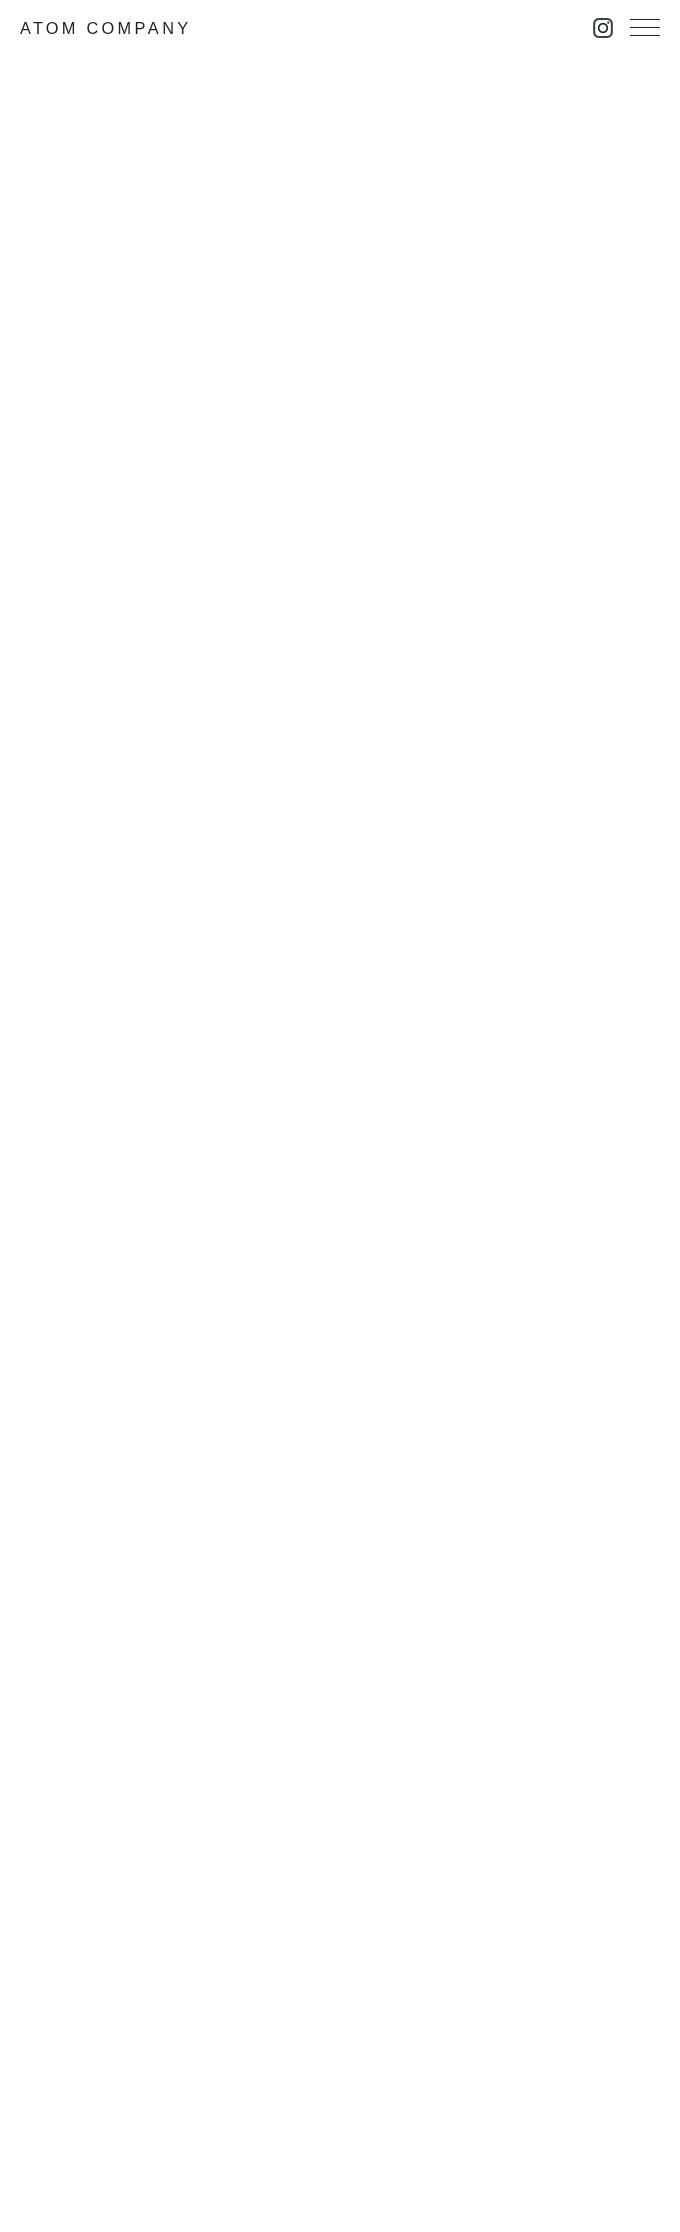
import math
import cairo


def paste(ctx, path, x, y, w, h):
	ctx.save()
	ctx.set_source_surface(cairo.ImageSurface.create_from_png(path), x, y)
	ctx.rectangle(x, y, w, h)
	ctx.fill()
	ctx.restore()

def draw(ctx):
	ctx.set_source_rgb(1, 1, 1)
	ctx.paint()
	paste(ctx, 'media/1.png', 20, 22, 168, 12)
	paste(ctx, 'media/2.png', 593, 18, 20, 20)
	ctx.set_source_rgb(0.11, 0.141, 0.125)
	ctx.rectangle(630, 19, 30, 1)
	ctx.rectangle(630, 27, 30, 1)
	ctx.rectangle(630, 35, 30, 1)
	ctx.fill()


surface = cairo.ImageSurface(cairo.FORMAT_RGB24, 680, 2232)
ctx = cairo.Context(surface)
options = cairo.FontOptions()
options.set_hint_metrics(cairo.HINT_METRICS_OFF)
options.set_hint_style(cairo.HINT_STYLE_NONE)
ctx.set_font_options(options)
ctx.set_miter_limit(4)
draw(ctx)
surface.write_to_png('image.png')
